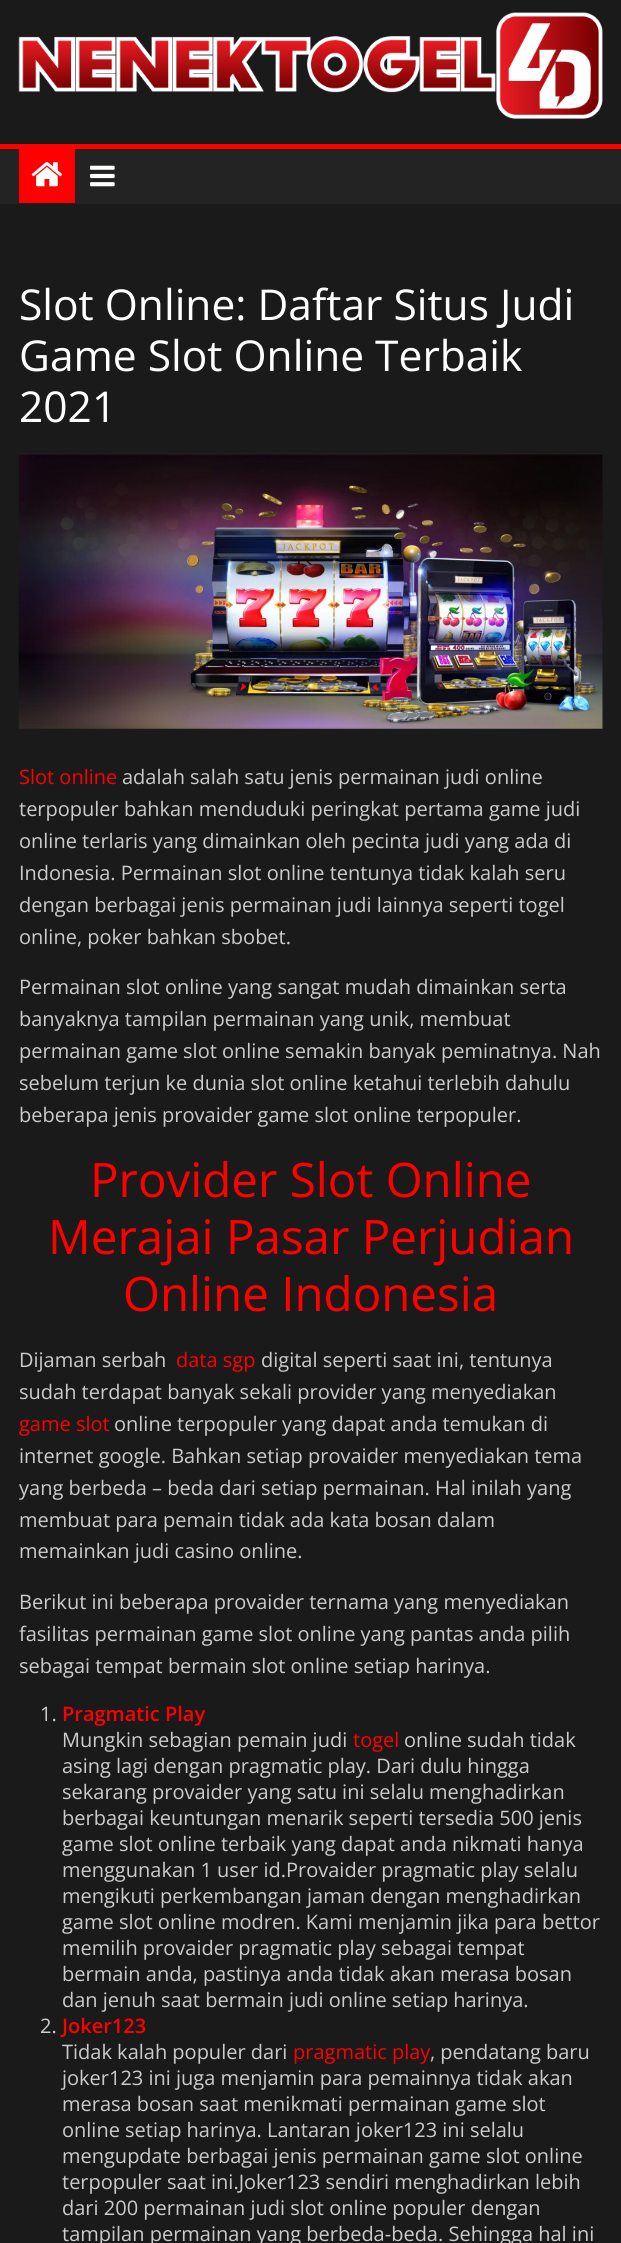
import math
import cairo


def paste(ctx, path, x, y, w, h):
	ctx.save()
	ctx.set_source_surface(cairo.ImageSurface.create_from_png(path), x, y)
	ctx.rectangle(x, y, w, h)
	ctx.fill()
	ctx.restore()

def draw(ctx):
	ctx.set_source_rgb(0.102, 0.102, 0.102)
	ctx.paint()
	paste(ctx, 'media/1.png', 18, 12, 585, 107)
	ctx.set_source_rgb(0.137, 0.137, 0.137)
	ctx.rectangle(0, 149, 621, 55)
	ctx.fill()
	ctx.set_source_rgb(1, 0, 0)
	ctx.rectangle(0, 144, 621, 5)
	ctx.rectangle(19, 149, 56, 54)
	ctx.fill()
	paste(ctx, 'media/2.png', 31, 162, 32, 25)
	paste(ctx, 'media/3.png', 90, 165, 25, 22)
	ctx.select_font_face('Open Sans')
	ctx.set_font_size(42.5)
	ctx.set_source_rgb(1, 1, 1)
	for x, y, s in [
		(19, 320, 'Slot Online: Daftar Situs Judi'),
		(19, 371, 'Game Slot Online Terbaik'),
		(19, 422, '2021'),
	]:
		ctx.move_to(x, y)
		ctx.show_text(s)
	paste(ctx, 'media/4.png', 18, 453, 585, 276)
	ctx.set_font_size(20)
	ctx.set_source_rgb(1, 0, 0)
	ctx.move_to(19, 784)
	ctx.show_text('Slot online')
	ctx.set_source_rgb(0.8, 0.8, 0.8)
	for x, y, s in [
		(122, 784, 'adalah salah satu jenis permainan judi online'),
		(19, 816, 'terpopuler bahkan menduduki peringkat pertama game judi'),
		(19, 848, 'online terlaris yang dimainkan oleh pecinta judi yang ada di'),
		(19, 880, 'Indonesia. Permainan slot online tentunya tidak kalah seru'),
		(19, 912, 'dengan berbagai jenis permainan judi lainnya seperti togel'),
		(19, 944, 'online, poker bahkan sbobet.'),
		(19, 994, 'Permainan slot online yang sangat mudah dimainkan serta'),
		(19, 1026, 'banyaknya tampilan permainan yang unik, membuat'),
		(19, 1058, 'permainan game slot online semakin banyak peminatnya. Nah'),
		(19, 1090, 'sebelum terjun ke dunia slot online ketahui terlebih dahulu'),
		(19, 1122, 'beberapa jenis provaider game slot online terpopuler.'),
	]:
		ctx.move_to(x, y)
		ctx.show_text(s)
	ctx.set_font_size(47.5)
	ctx.set_source_rgb(1, 0, 0)
	for x, y, s in [
		(90, 1197, 'Provider Slot Online'),
		(48, 1254, 'Merajai Pasar Perjudian'),
		(123, 1311, 'Online Indonesia'),
	]:
		ctx.move_to(x, y)
		ctx.show_text(s)
	ctx.set_font_size(20)
	ctx.set_source_rgb(0.8, 0.8, 0.8)
	ctx.move_to(19, 1367)
	ctx.show_text('Dijaman serbah')
	ctx.set_source_rgb(1, 0, 0)
	ctx.move_to(176, 1367)
	ctx.show_text('data sgp')
	ctx.set_source_rgb(0.8, 0.8, 0.8)
	ctx.move_to(261, 1367)
	ctx.show_text('digital seperti saat ini, tentunya')
	ctx.move_to(19, 1399)
	ctx.show_text('sudah terdapat banyak sekali provider yang menyediakan')
	ctx.set_source_rgb(1, 0, 0)
	ctx.move_to(19, 1431)
	ctx.show_text('game slot')
	ctx.set_source_rgb(0.8, 0.8, 0.8)
	for x, y, s in [
		(114, 1431, 'online terpopuler yang dapat anda temukan di'),
		(19, 1463, 'internet google. Bahkan setiap provaider menyediakan tema'),
		(19, 1495, 'yang berbeda – beda dari setiap permainan. Hal inilah yang'),
		(19, 1527, 'membuat para pemain tidak ada kata bosan dalam'),
		(19, 1558, 'memainkan judi casino online.'),
		(19, 1609, 'Berikut ini beberapa provaider ternama yang menyediakan'),
		(19, 1641, 'fasilitas permainan game slot online yang pantas anda pilih'),
		(19, 1673, 'sebagai tempat bermain slot online setiap harinya.'),
		(40, 1721, '1.'),
	]:
		ctx.move_to(x, y)
		ctx.show_text(s)
	ctx.select_font_face('Open Sans SemiBold')
	ctx.set_source_rgb(1, 0, 0)
	ctx.move_to(62, 1721)
	ctx.show_text('Pragmatic Play')
	ctx.select_font_face('Open Sans')
	ctx.set_source_rgb(0.8, 0.8, 0.8)
	ctx.move_to(62, 1747)
	ctx.show_text('Mungkin sebagian pemain judi')
	ctx.set_source_rgb(1, 0, 0)
	ctx.move_to(353, 1747)
	ctx.show_text('togel')
	ctx.set_source_rgb(0.8, 0.8, 0.8)
	for x, y, s in [
		(404, 1747, 'online sudah tidak'),
		(62, 1773, 'asing lagi dengan pragmatic play. Dari dulu hingga'),
		(62, 1799, 'sekarang provaider yang satu ini selalu menghadirkan'),
		(62, 1825, 'berbagai keuntungan menarik seperti tersedia 500 jenis'),
		(62, 1851, 'game slot online terbaik yang dapat anda nikmati hanya'),
		(62, 1877, 'menggunakan 1 user id.Provaider pragmatic play selalu'),
		(62, 1903, 'mengikuti perkembangan jaman dengan menghadirkan'),
		(62, 1929, 'game slot online modren. Kami menjamin jika para bettor'),
		(62, 1955, 'memilih provaider pragmatic play sebagai tempat'),
		(62, 1981, 'bermain anda, pastinya anda tidak akan merasa bosan'),
		(62, 2007, 'dan jenuh saat bermain judi online setiap harinya.'),
		(40, 2033, '2.'),
	]:
		ctx.move_to(x, y)
		ctx.show_text(s)
	ctx.select_font_face('Open Sans SemiBold')
	ctx.set_source_rgb(1, 0, 0)
	ctx.move_to(62, 2033)
	ctx.show_text('Joker123')
	ctx.select_font_face('Open Sans')
	ctx.set_source_rgb(0.8, 0.8, 0.8)
	ctx.move_to(62, 2059)
	ctx.show_text('Tidak kalah populer dari')
	ctx.set_source_rgb(1, 0, 0)
	ctx.move_to(293, 2059)
	ctx.show_text('pragmatic play')
	ctx.set_source_rgb(0.8, 0.8, 0.8)
	for x, y, s in [
		(430, 2059, ', pendatang baru'),
		(62, 2085, 'joker123 ini juga menjamin para pemainnya tidak akan'),
		(62, 2111, 'merasa bosan saat menikmati permainan game slot'),
		(62, 2137, 'online setiap harinya. Lantaran joker123 ini selalu'),
		(62, 2163, 'mengupdate berbagai jenis permainan game slot online'),
		(62, 2189, 'terpopuler saat ini.Joker123 sendiri menghadirkan lebih'),
		(62, 2215, 'dari 200 permainan judi slot online populer dengan'),
		(62, 2241, 'tampilan permainan yang berbeda-beda. Sehingga hal ini'),
	]:
		ctx.move_to(x, y)
		ctx.show_text(s)


surface = cairo.ImageSurface(cairo.FORMAT_RGB24, 621, 2243)
ctx = cairo.Context(surface)
options = cairo.FontOptions()
options.set_hint_metrics(cairo.HINT_METRICS_OFF)
options.set_hint_style(cairo.HINT_STYLE_NONE)
ctx.set_font_options(options)
ctx.set_miter_limit(4)
draw(ctx)
surface.write_to_png('image.png')
